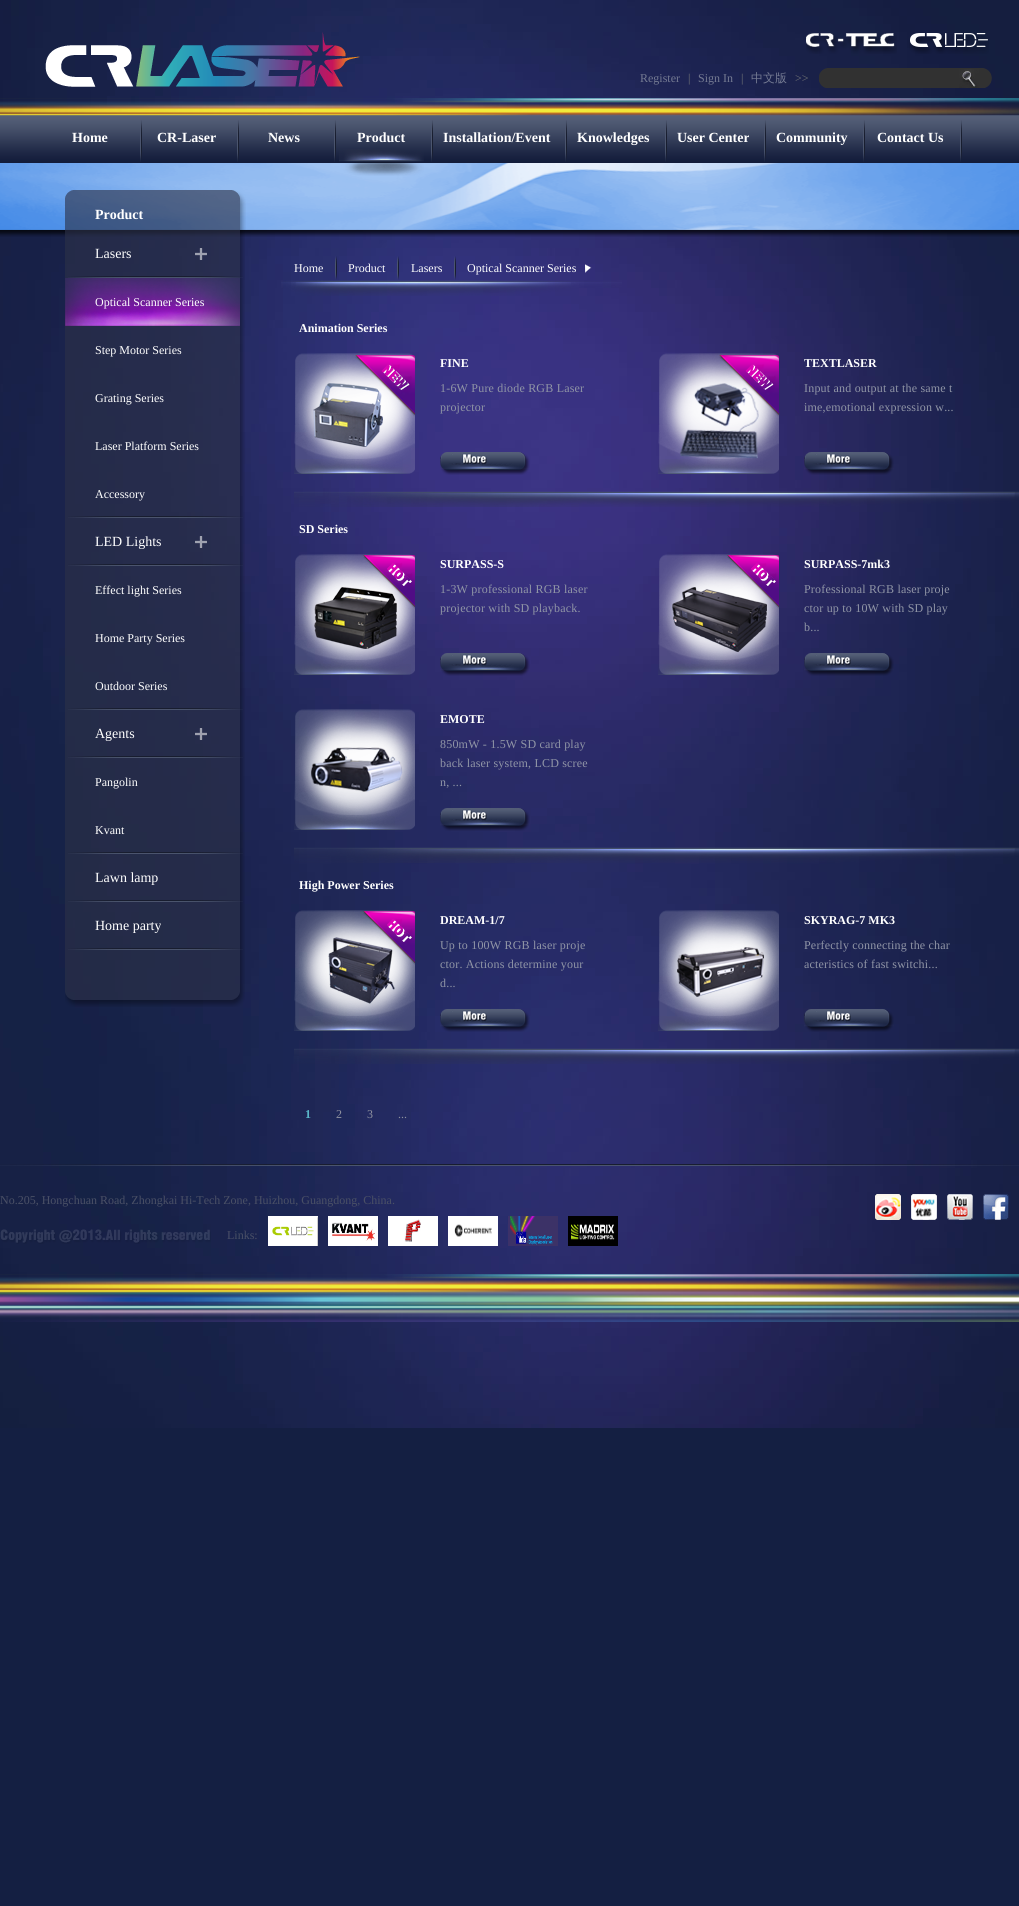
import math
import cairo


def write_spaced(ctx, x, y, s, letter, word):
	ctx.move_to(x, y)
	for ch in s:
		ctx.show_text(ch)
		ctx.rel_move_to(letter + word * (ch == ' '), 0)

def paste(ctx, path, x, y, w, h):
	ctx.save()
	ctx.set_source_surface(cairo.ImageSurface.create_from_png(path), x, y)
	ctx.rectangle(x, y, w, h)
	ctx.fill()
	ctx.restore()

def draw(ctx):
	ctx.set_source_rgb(0.082, 0.122, 0.259)
	ctx.paint()
	paste(ctx, 'media/1.png', 0, 0, 1019, 1428)
	paste(ctx, 'media/2.png', 45, 32, 315, 55)
	paste(ctx, 'media/3.png', 806, 33, 91, 21)
	paste(ctx, 'media/4.png', 909, 33, 80, 21)
	ctx.select_font_face('Liberation Serif')
	ctx.set_font_size(12)
	ctx.set_source_rgb(0.455, 0.478, 0.573)
	ctx.move_to(640, 82)
	ctx.show_text('Register')
	ctx.set_source_rgb(0.439, 0.447, 0.459)
	ctx.move_to(688, 82)
	ctx.show_text('|')
	ctx.set_source_rgb(0.455, 0.478, 0.573)
	ctx.move_to(698, 82)
	ctx.show_text('Sign In')
	ctx.set_source_rgb(0.439, 0.447, 0.459)
	ctx.move_to(741, 82)
	ctx.show_text('|')
	ctx.select_font_face('WenQuanYi Zen Hei Medium')
	ctx.set_source_rgb(0.455, 0.478, 0.573)
	ctx.move_to(751, 82)
	ctx.show_text('中文版')
	ctx.select_font_face('Liberation Serif')
	ctx.set_source_rgb(0.439, 0.447, 0.459)
	ctx.move_to(795, 82)
	ctx.show_text('>>')
	paste(ctx, 'media/5.png', 819, 68, 173, 20)
	paste(ctx, 'media/6.png', 0, 98, 1019, 65)
	ctx.select_font_face('Liberation Serif', cairo.FONT_SLANT_NORMAL, cairo.FONT_WEIGHT_BOLD)
	ctx.set_font_size(14)
	ctx.set_source_rgb(1, 1, 1)
	ctx.move_to(72, 142)
	ctx.show_text('Home')
	paste(ctx, 'media/7.png', 140, 120, 2, 42)
	ctx.move_to(157, 142)
	ctx.show_text('CR-Laser')
	paste(ctx, 'media/7.png', 237, 120, 2, 42)
	ctx.move_to(268, 142)
	ctx.show_text('News')
	paste(ctx, 'media/7.png', 334, 120, 2, 42)
	paste(ctx, 'media/9.png', 0, 163, 1019, 74)
	paste(ctx, 'media/8.png', 339, 149, 85, 27)
	ctx.move_to(357, 142)
	ctx.show_text('Product')
	paste(ctx, 'media/7.png', 431, 120, 2, 42)
	ctx.move_to(443, 142)
	ctx.show_text('Installation/Event')
	paste(ctx, 'media/7.png', 565, 120, 2, 42)
	ctx.move_to(577, 142)
	ctx.show_text('Knowledges')
	paste(ctx, 'media/7.png', 665, 120, 2, 42)
	ctx.move_to(677, 142)
	ctx.show_text('User Center')
	paste(ctx, 'media/7.png', 764, 120, 2, 42)
	ctx.move_to(776, 142)
	ctx.show_text('Community')
	paste(ctx, 'media/7.png', 863, 120, 2, 42)
	ctx.move_to(877, 142)
	ctx.show_text('Contact Us')
	paste(ctx, 'media/7.png', 960, 120, 2, 42)
	paste(ctx, 'media/10.png', 65, 190, 181, 40)
	ctx.move_to(95, 219)
	ctx.show_text('Product')
	paste(ctx, 'media/11.png', 65, 230, 180, 720)
	paste(ctx, 'media/12.png', 68, 276, 175, 2)
	paste(ctx, 'media/13.png', 195, 248, 12, 12)
	ctx.select_font_face('Liberation Serif')
	ctx.move_to(95, 258)
	ctx.show_text('Lasers')
	paste(ctx, 'media/14.png', 68, 516, 175, 2)
	paste(ctx, 'media/15.png', 65, 278, 175, 48)
	ctx.set_font_size(12)
	for x, y, s in [
		(95, 306, 'Optical Scanner Series'),
		(95, 354, 'Step Motor Series'),
		(95, 402, 'Grating Series'),
		(95, 450, 'Laser Platform Series'),
		(95, 498, 'Accessory'),
	]:
		ctx.move_to(x, y)
		ctx.show_text(s)
	paste(ctx, 'media/16.png', 68, 564, 175, 2)
	paste(ctx, 'media/17.png', 195, 536, 12, 12)
	ctx.set_font_size(14)
	ctx.move_to(95, 546)
	ctx.show_text('LED Lights')
	paste(ctx, 'media/18.png', 68, 708, 175, 2)
	ctx.set_font_size(12)
	for x, y, s in [
		(95, 594, 'Effect light Series'),
		(95, 642, 'Home Party Series'),
		(95, 690, 'Outdoor Series'),
	]:
		ctx.move_to(x, y)
		ctx.show_text(s)
	paste(ctx, 'media/19.png', 68, 756, 175, 2)
	paste(ctx, 'media/20.png', 195, 728, 12, 12)
	ctx.set_font_size(14)
	ctx.move_to(95, 738)
	ctx.show_text('Agents')
	paste(ctx, 'media/21.png', 68, 852, 175, 2)
	ctx.set_font_size(12)
	ctx.move_to(95, 786)
	ctx.show_text('Pangolin')
	ctx.move_to(95, 834)
	ctx.show_text('Kvant')
	paste(ctx, 'media/22.png', 68, 900, 175, 2)
	ctx.set_font_size(14)
	ctx.move_to(95, 882)
	ctx.show_text('Lawn lamp')
	paste(ctx, 'media/23.png', 68, 948, 175, 2)
	ctx.move_to(95, 930)
	ctx.show_text('Home party')
	paste(ctx, 'media/24.png', 65, 950, 180, 30)
	paste(ctx, 'media/25.png', 65, 980, 180, 27)
	paste(ctx, 'media/26.png', 281, 280, 341, 16)
	ctx.set_font_size(12)
	ctx.move_to(294, 272)
	ctx.show_text('Home')
	paste(ctx, 'media/27.png', 335, 256, 2, 24)
	ctx.move_to(348, 272)
	ctx.show_text('Product')
	paste(ctx, 'media/28.png', 397, 256, 2, 24)
	ctx.move_to(411, 272)
	ctx.show_text('Lasers')
	paste(ctx, 'media/29.png', 454, 256, 2, 24)
	ctx.move_to(467, 272)
	ctx.show_text('Optical Scanner Series')
	paste(ctx, 'media/30.png', 585, 264, 7, 9)
	paste(ctx, 'media/31.png', 294, 491, 725, 16)
	ctx.select_font_face('Liberation Serif', cairo.FONT_SLANT_NORMAL, cairo.FONT_WEIGHT_BOLD)
	ctx.move_to(299, 332)
	ctx.show_text('Animation Series')
	paste(ctx, 'media/32.png', 294, 353, 121, 121)
	ctx.move_to(440, 367)
	ctx.show_text('FINE')
	ctx.select_font_face('Liberation Serif')
	ctx.set_source_rgb(0.565, 0.584, 0.651)
	write_spaced(ctx, 440, 392, '1-6W Pure diode RGB Laser', 0.2, 0)
	write_spaced(ctx, 440, 411, 'projector', 0.2, 0)
	paste(ctx, 'media/33.png', 440, 452, 90, 23)
	paste(ctx, 'media/34.png', 658, 353, 121, 121)
	ctx.select_font_face('Liberation Serif', cairo.FONT_SLANT_NORMAL, cairo.FONT_WEIGHT_BOLD)
	ctx.set_source_rgb(1, 1, 1)
	ctx.move_to(804, 367)
	ctx.show_text('TEXTLASER')
	ctx.select_font_face('Liberation Serif')
	ctx.set_source_rgb(0.565, 0.584, 0.651)
	write_spaced(ctx, 804, 392, 'Input and output at the same t', 0.2, 0)
	write_spaced(ctx, 804, 411, 'ime,emotional expression w...', 0.2, 0)
	paste(ctx, 'media/35.png', 804, 452, 90, 23)
	paste(ctx, 'media/36.png', 294, 847, 725, 16)
	ctx.select_font_face('Liberation Serif', cairo.FONT_SLANT_NORMAL, cairo.FONT_WEIGHT_BOLD)
	ctx.set_source_rgb(1, 1, 1)
	ctx.move_to(299, 533)
	ctx.show_text('SD Series')
	paste(ctx, 'media/37.png', 294, 554, 121, 121)
	ctx.move_to(440, 568)
	ctx.show_text('SURPASS-S')
	ctx.select_font_face('Liberation Serif')
	ctx.set_source_rgb(0.565, 0.584, 0.651)
	write_spaced(ctx, 440, 593, '1-3W professional RGB laser', 0.2, 0)
	write_spaced(ctx, 440, 612, 'projector with SD playback.', 0.2, 0)
	paste(ctx, 'media/38.png', 440, 653, 90, 23)
	paste(ctx, 'media/39.png', 658, 554, 121, 121)
	ctx.select_font_face('Liberation Serif', cairo.FONT_SLANT_NORMAL, cairo.FONT_WEIGHT_BOLD)
	ctx.set_source_rgb(1, 1, 1)
	ctx.move_to(804, 568)
	ctx.show_text('SURPASS-7mk3')
	ctx.select_font_face('Liberation Serif')
	ctx.set_source_rgb(0.565, 0.584, 0.651)
	for x, y, s in [
		(804, 593, 'Professional RGB laser proje'),
		(804, 612, 'ctor up to 10W with SD play'),
		(804, 631, 'b...'),
	]:
		write_spaced(ctx, x, y, s, 0.2, 0)
	paste(ctx, 'media/40.png', 804, 653, 90, 23)
	paste(ctx, 'media/41.png', 294, 709, 121, 121)
	ctx.select_font_face('Liberation Serif', cairo.FONT_SLANT_NORMAL, cairo.FONT_WEIGHT_BOLD)
	ctx.set_source_rgb(1, 1, 1)
	ctx.move_to(440, 723)
	ctx.show_text('EMOTE')
	ctx.select_font_face('Liberation Serif')
	ctx.set_source_rgb(0.565, 0.584, 0.651)
	for x, y, s in [
		(440, 748, '850mW - 1.5W SD card play'),
		(440, 767, 'back laser system, LCD scree'),
		(440, 786, 'n, ...'),
	]:
		write_spaced(ctx, x, y, s, 0.2, 0)
	paste(ctx, 'media/42.png', 440, 808, 90, 23)
	paste(ctx, 'media/43.png', 294, 1048, 725, 16)
	ctx.select_font_face('Liberation Serif', cairo.FONT_SLANT_NORMAL, cairo.FONT_WEIGHT_BOLD)
	ctx.set_source_rgb(1, 1, 1)
	ctx.move_to(299, 889)
	ctx.show_text('High Power Series')
	paste(ctx, 'media/44.png', 294, 910, 121, 121)
	ctx.move_to(440, 924)
	ctx.show_text('DREAM-1/7')
	ctx.select_font_face('Liberation Serif')
	ctx.set_source_rgb(0.565, 0.584, 0.651)
	for x, y, s in [
		(440, 949, 'Up to 100W RGB laser proje'),
		(440, 968, 'ctor. Actions determine your'),
		(440, 987, 'd...'),
	]:
		write_spaced(ctx, x, y, s, 0.2, 0)
	paste(ctx, 'media/45.png', 440, 1009, 90, 23)
	paste(ctx, 'media/46.png', 658, 910, 121, 121)
	ctx.select_font_face('Liberation Serif', cairo.FONT_SLANT_NORMAL, cairo.FONT_WEIGHT_BOLD)
	ctx.set_source_rgb(1, 1, 1)
	ctx.move_to(804, 924)
	ctx.show_text('SKYRAG-7 MK3')
	ctx.select_font_face('Liberation Serif')
	ctx.set_source_rgb(0.565, 0.584, 0.651)
	write_spaced(ctx, 804, 949, 'Perfectly connecting the char', 0.2, 0)
	write_spaced(ctx, 804, 968, 'acteristics of fast switchi...', 0.2, 0)
	paste(ctx, 'media/47.png', 804, 1009, 90, 23)
	ctx.select_font_face('Liberation Serif', cairo.FONT_SLANT_NORMAL, cairo.FONT_WEIGHT_BOLD)
	ctx.set_source_rgb(0.353, 0.718, 0.788)
	ctx.move_to(305, 1118)
	ctx.show_text('1')
	ctx.select_font_face('Liberation Serif')
	ctx.set_source_rgb(0.557, 0.569, 0.624)
	for x, y, s in [
		(336, 1118, '2'),
		(367, 1118, '3'),
		(398, 1118, '...'),
	]:
		ctx.move_to(x, y)
		ctx.show_text(s)
	paste(ctx, 'media/48.png', 0, 1164, 1019, 2)
	ctx.set_source_rgb(0.29, 0.314, 0.4)
	ctx.move_to(0, 1204)
	ctx.show_text('No.205, Hongchuan Road, Zhongkai Hi-Tech Zone, Huizhou, Guangdong, China.')
	paste(ctx, 'media/49.png', 875, 1194, 26, 26)
	paste(ctx, 'media/50.png', 911, 1194, 26, 26)
	paste(ctx, 'media/51.png', 947, 1194, 26, 26)
	paste(ctx, 'media/52.png', 983, 1194, 26, 26)
	paste(ctx, 'media/53.png', 0, 1229, 211, 15)
	ctx.move_to(227, 1239)
	ctx.show_text('Links:')
	ctx.set_source_rgb(1, 1, 1)
	ctx.rectangle(268, 1216, 4, 30)
	ctx.fill()
	paste(ctx, 'media/54.png', 272, 1216, 46, 30)
	ctx.rectangle(328, 1216, 50, 30)
	ctx.fill()
	paste(ctx, 'media/55.png', 332, 1222, 43, 19)
	ctx.rectangle(388, 1216, 50, 30)
	ctx.fill()
	paste(ctx, 'media/56.png', 404, 1219, 17, 23)
	ctx.rectangle(448, 1216, 50, 30)
	ctx.fill()
	paste(ctx, 'media/57.png', 454, 1224, 38, 13)
	paste(ctx, 'media/58.png', 508, 1216, 50, 30)
	paste(ctx, 'media/59.png', 568, 1216, 50, 30)
	paste(ctx, 'media/60.png', 0, 1274, 1019, 48)


surface = cairo.ImageSurface(cairo.FORMAT_RGB24, 1019, 1906)
ctx = cairo.Context(surface)
options = cairo.FontOptions()
options.set_hint_metrics(cairo.HINT_METRICS_OFF)
options.set_hint_style(cairo.HINT_STYLE_NONE)
ctx.set_font_options(options)
ctx.set_miter_limit(4)
draw(ctx)
surface.write_to_png('image.png')
